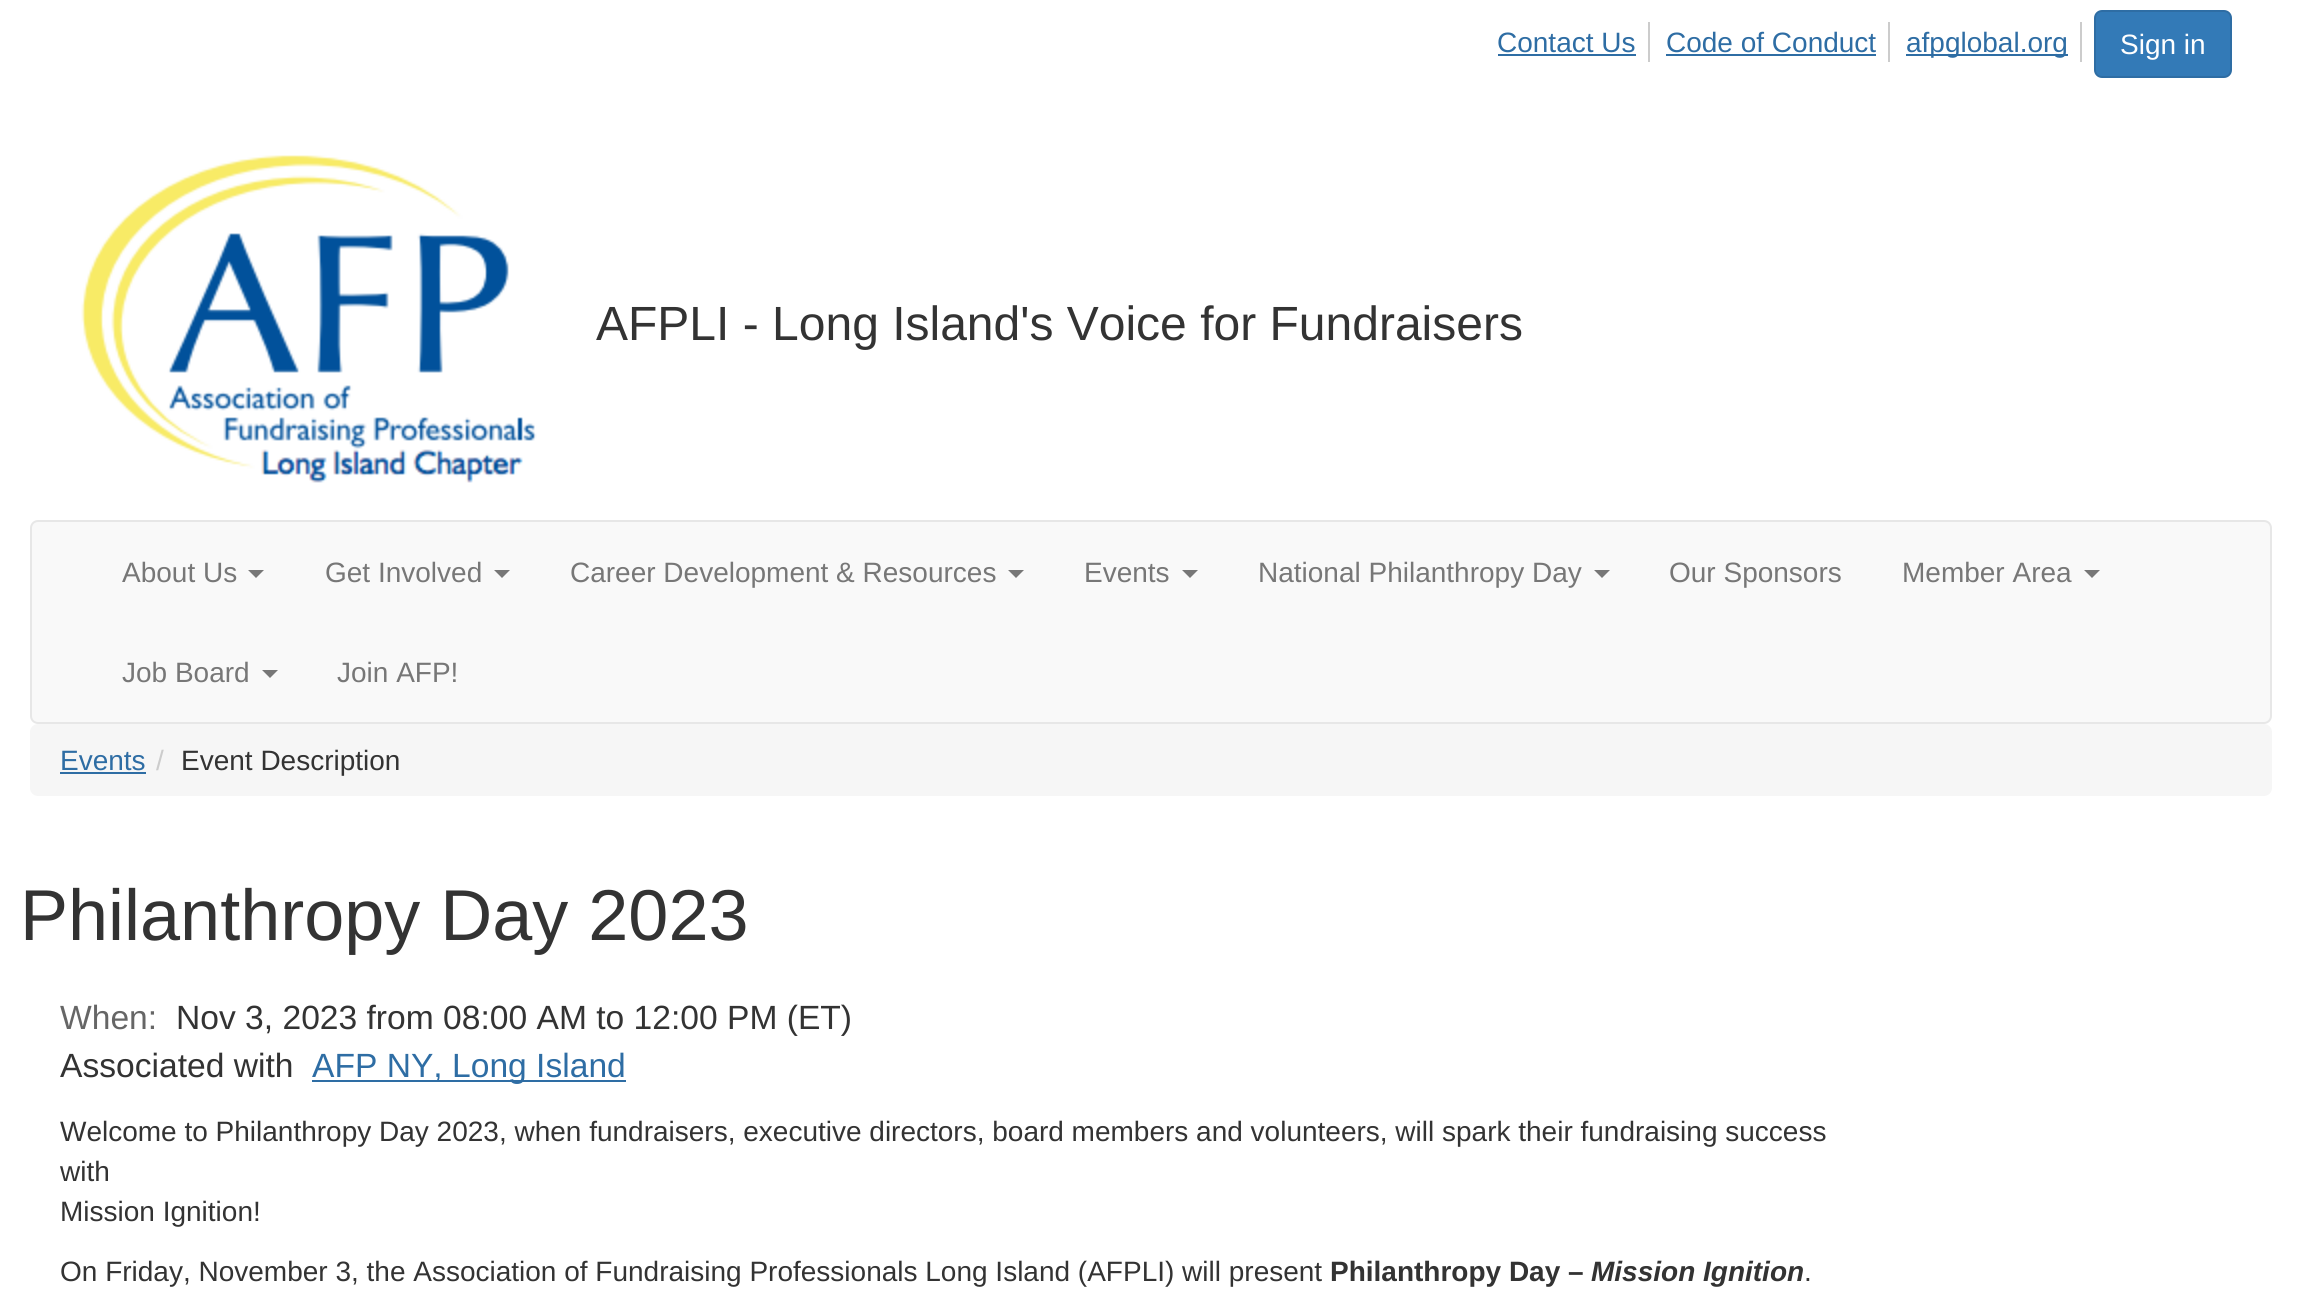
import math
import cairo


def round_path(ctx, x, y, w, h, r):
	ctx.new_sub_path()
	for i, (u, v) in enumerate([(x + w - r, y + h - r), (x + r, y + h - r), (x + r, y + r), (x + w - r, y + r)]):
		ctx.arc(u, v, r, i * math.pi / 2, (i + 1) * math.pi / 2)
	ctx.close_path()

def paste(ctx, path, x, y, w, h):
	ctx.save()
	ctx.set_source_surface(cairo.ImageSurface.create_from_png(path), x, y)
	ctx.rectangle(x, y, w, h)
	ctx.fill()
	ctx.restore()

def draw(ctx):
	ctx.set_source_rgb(1, 1, 1)
	ctx.paint()
	ctx.set_source_rgb(0.8, 0.8, 0.8)
	ctx.rectangle(1648, 22, 2, 40)
	ctx.fill()
	ctx.select_font_face('Liberation Sans')
	ctx.set_font_size(28)
	ctx.set_source_rgb(0.18, 0.427, 0.643)
	ctx.move_to(1497, 52)
	ctx.show_text('Contact Us')
	ctx.rectangle(1498, 54, 138, 2)
	ctx.fill()
	ctx.set_source_rgb(0.8, 0.8, 0.8)
	ctx.rectangle(1888, 22, 2, 40)
	ctx.fill()
	ctx.set_source_rgb(0.18, 0.427, 0.643)
	ctx.move_to(1666, 52)
	ctx.show_text('Code of Conduct')
	ctx.rectangle(1666, 54, 210, 2)
	ctx.fill()
	ctx.set_source_rgb(0.8, 0.8, 0.8)
	ctx.rectangle(2080, 22, 2, 40)
	ctx.fill()
	ctx.set_source_rgb(0.18, 0.427, 0.643)
	ctx.rectangle(1906, 54, 162, 2)
	ctx.fill()
	ctx.move_to(1906, 52)
	ctx.show_text('afpglobal.org')
	ctx.set_source_rgb(0.2, 0.478, 0.718)
	round_path(ctx, 2095, 11, 136, 66, 7)
	ctx.fill_preserve()
	ctx.set_source_rgb(0.18, 0.427, 0.643)
	ctx.stroke()
	ctx.set_source_rgb(1, 1, 1)
	ctx.move_to(2120, 54)
	ctx.show_text('Sign in')
	paste(ctx, 'media/1.png', 81, 155, 456, 328)
	ctx.set_font_size(48)
	ctx.set_source_rgb(0.2, 0.2, 0.2)
	ctx.move_to(596, 340)
	ctx.show_text('AFPLI - Long Island\'s Voice for Fundraisers')
	ctx.set_source_rgb(0.973, 0.973, 0.973)
	round_path(ctx, 31, 521, 2240, 202, 7)
	ctx.fill_preserve()
	ctx.set_source_rgb(0.906, 0.906, 0.906)
	ctx.stroke()
	ctx.set_font_size(28)
	ctx.set_source_rgb(0.467, 0.467, 0.467)
	ctx.move_to(122, 582)
	ctx.show_text('About Us')
	ctx.new_path()
	ctx.move_to(248, 570)
	ctx.line_to(264, 570)
	ctx.line_to(256, 578)
	ctx.close_path()
	ctx.fill()
	ctx.move_to(325, 582)
	ctx.show_text('Get Involved')
	ctx.new_path()
	ctx.move_to(494, 570)
	ctx.line_to(510, 570)
	ctx.line_to(502, 578)
	ctx.close_path()
	ctx.fill()
	ctx.move_to(570, 582)
	ctx.show_text('Career Development & Resources')
	ctx.new_path()
	ctx.move_to(1008, 570)
	ctx.line_to(1024, 570)
	ctx.line_to(1016, 578)
	ctx.close_path()
	ctx.fill()
	ctx.move_to(1084, 582)
	ctx.show_text('Events')
	ctx.new_path()
	ctx.move_to(1182, 570)
	ctx.line_to(1198, 570)
	ctx.line_to(1190, 578)
	ctx.close_path()
	ctx.fill()
	ctx.move_to(1258, 582)
	ctx.show_text('National Philanthropy Day')
	ctx.new_path()
	ctx.move_to(1594, 570)
	ctx.line_to(1610, 570)
	ctx.line_to(1602, 578)
	ctx.close_path()
	ctx.fill()
	ctx.move_to(1669, 582)
	ctx.show_text('Our Sponsors')
	ctx.move_to(1902, 582)
	ctx.show_text('Member Area')
	ctx.new_path()
	ctx.move_to(2084, 570)
	ctx.line_to(2100, 570)
	ctx.line_to(2092, 578)
	ctx.close_path()
	ctx.fill()
	ctx.move_to(122, 682)
	ctx.show_text('Job Board')
	ctx.new_path()
	ctx.move_to(262, 670)
	ctx.line_to(278, 670)
	ctx.line_to(270, 678)
	ctx.close_path()
	ctx.fill()
	ctx.move_to(337, 682)
	ctx.show_text('Join AFP!')
	ctx.set_source_rgb(0.961, 0.961, 0.961)
	round_path(ctx, 30, 724, 2242, 72, 8)
	ctx.fill()
	ctx.set_source_rgb(0.18, 0.427, 0.643)
	ctx.move_to(60, 770)
	ctx.show_text('Events')
	ctx.rectangle(60, 772, 86, 2)
	ctx.fill()
	ctx.set_source_rgb(0.8, 0.8, 0.8)
	ctx.move_to(156, 770)
	ctx.show_text('/')
	ctx.set_source_rgb(0.2, 0.2, 0.2)
	ctx.move_to(181, 770)
	ctx.show_text('Event Description')
	ctx.set_font_size(72)
	ctx.move_to(20, 940)
	ctx.show_text('Philanthropy Day 2023')
	ctx.set_font_size(33.6)
	ctx.set_source_rgb(0.4, 0.4, 0.4)
	ctx.move_to(60, 1029)
	ctx.show_text('When:')
	ctx.set_source_rgb(0.2, 0.2, 0.2)
	ctx.move_to(176, 1029)
	ctx.show_text('Nov 3, 2023 from 08:00 AM to 12:00 PM (ET)')
	ctx.move_to(60, 1077)
	ctx.show_text('Associated with')
	ctx.set_source_rgb(0.18, 0.427, 0.643)
	ctx.rectangle(312, 1080, 314, 2)
	ctx.fill()
	ctx.move_to(312, 1077)
	ctx.show_text('AFP NY, Long Island')
	ctx.set_font_size(28)
	ctx.set_source_rgb(0.2, 0.2, 0.2)
	for x, y, s in [
		(60, 1141, 'Welcome to Philanthropy Day 2023, when fundraisers, executive directors, board members and volunteers, will spark their fundraising success'),
		(60, 1181, 'with'),
		(60, 1221, 'Mission Ignition!'),
		(60, 1281, 'On Friday, November 3, the Association of Fundraising Professionals Long Island (AFPLI) will present'),
	]:
		ctx.move_to(x, y)
		ctx.show_text(s)
	ctx.select_font_face('Liberation Sans', cairo.FONT_SLANT_NORMAL, cairo.FONT_WEIGHT_BOLD)
	ctx.move_to(1330, 1281)
	ctx.show_text('Philanthropy Day –')
	ctx.select_font_face('Liberation Sans', cairo.FONT_SLANT_ITALIC, cairo.FONT_WEIGHT_BOLD)
	ctx.move_to(1591, 1281)
	ctx.show_text('Mission Ignition')
	ctx.select_font_face('Liberation Sans')
	ctx.move_to(1804, 1281)
	ctx.show_text('.')


surface = cairo.ImageSurface(cairo.FORMAT_RGB24, 2302, 1293)
ctx = cairo.Context(surface)
options = cairo.FontOptions()
options.set_hint_metrics(cairo.HINT_METRICS_OFF)
options.set_hint_style(cairo.HINT_STYLE_NONE)
ctx.set_font_options(options)
ctx.set_miter_limit(4)
draw(ctx)
surface.write_to_png('image.png')
